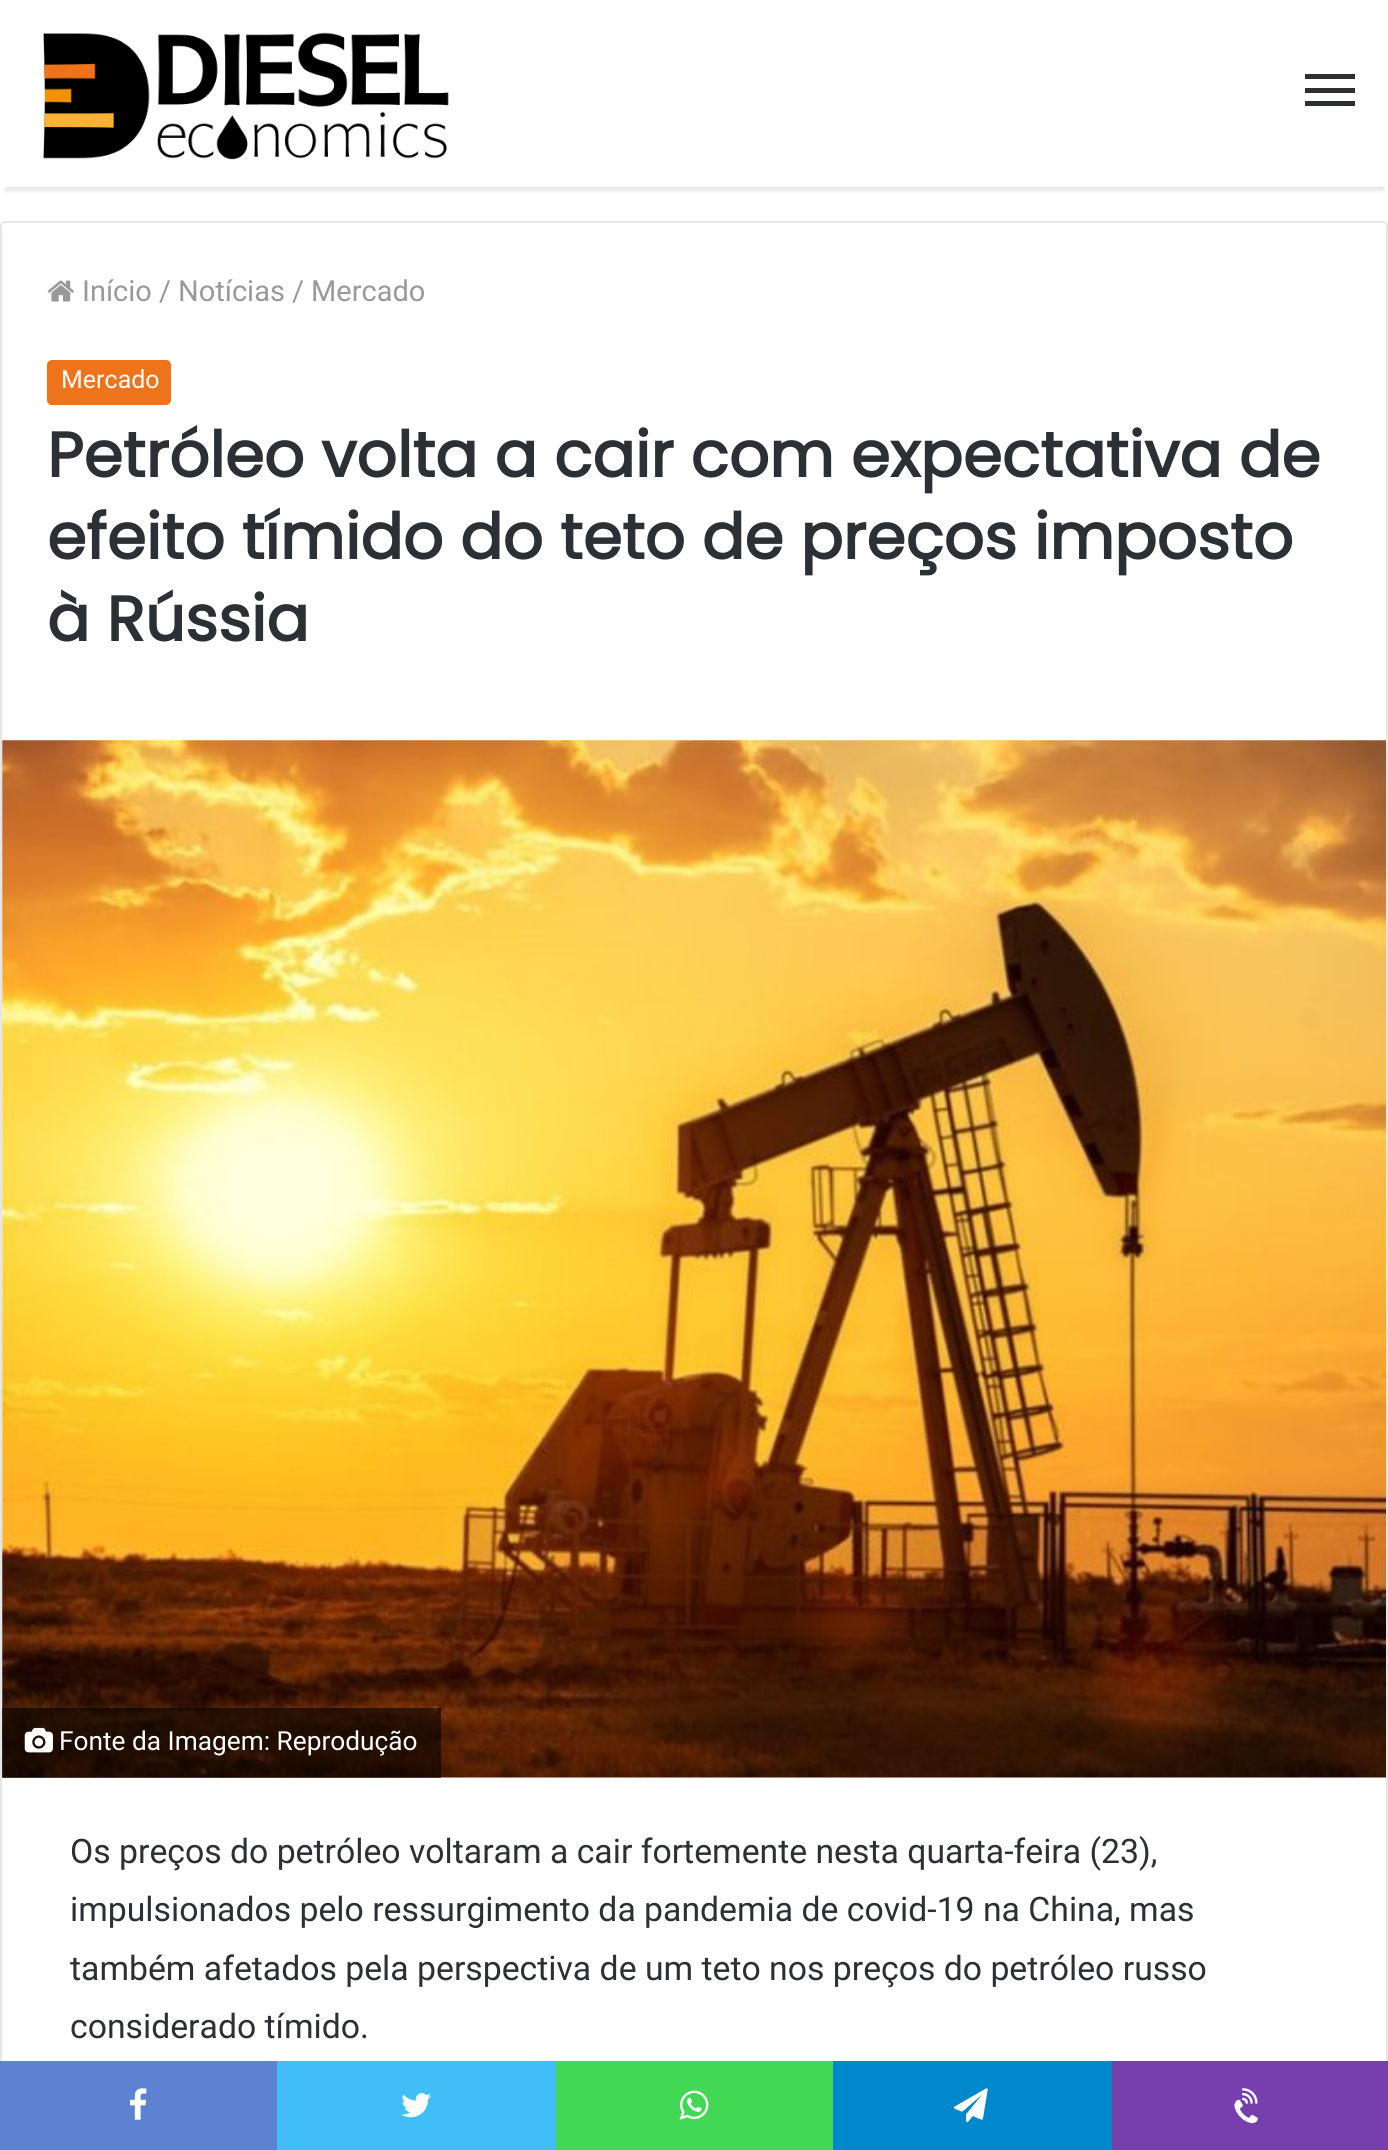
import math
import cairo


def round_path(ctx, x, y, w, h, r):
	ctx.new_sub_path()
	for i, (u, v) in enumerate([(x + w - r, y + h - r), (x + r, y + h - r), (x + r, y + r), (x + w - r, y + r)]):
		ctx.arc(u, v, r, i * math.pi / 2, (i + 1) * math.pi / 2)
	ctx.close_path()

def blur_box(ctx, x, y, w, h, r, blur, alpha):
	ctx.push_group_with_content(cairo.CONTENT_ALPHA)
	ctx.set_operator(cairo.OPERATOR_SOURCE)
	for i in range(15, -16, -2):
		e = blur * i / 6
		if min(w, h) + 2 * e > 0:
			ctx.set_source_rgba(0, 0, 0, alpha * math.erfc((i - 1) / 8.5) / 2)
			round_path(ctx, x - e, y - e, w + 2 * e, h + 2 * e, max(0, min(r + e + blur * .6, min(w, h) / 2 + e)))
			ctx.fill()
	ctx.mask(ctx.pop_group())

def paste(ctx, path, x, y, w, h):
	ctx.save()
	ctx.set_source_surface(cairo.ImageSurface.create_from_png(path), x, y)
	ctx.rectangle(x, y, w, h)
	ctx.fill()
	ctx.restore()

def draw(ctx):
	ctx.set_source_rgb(1, 1, 1)
	ctx.paint()
	ctx.set_source_rgb(0, 0, 0)
	blur_box(ctx, 5, 14, 1379, 177, 0, 2, 0.1)
	ctx.set_source_rgb(1, 1, 1)
	ctx.rectangle(2, 11, 1385, 176)
	ctx.fill()
	paste(ctx, 'media/1.png', 43, 32, 406, 128)
	ctx.set_source_rgb(0.173, 0.184, 0.204)
	ctx.rectangle(1305, 88, 50, 5)
	ctx.rectangle(1305, 74, 50, 5)
	ctx.rectangle(1305, 101, 50, 5)
	ctx.fill()
	round_path(ctx, 1, 222, 1386, 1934, 4)
	ctx.set_source_rgb(0.902, 0.902, 0.902)
	ctx.stroke()
	paste(ctx, 'media/2.png', 47, 280, 27, 22)
	ctx.select_font_face('Roboto')
	ctx.set_font_size(29)
	ctx.set_source_rgb(0.6, 0.6, 0.6)
	for x, y, s in [
		(82, 301, 'Início'),
		(159, 301, '/'),
		(178, 301, 'Notícias'),
		(292, 301, '/'),
		(311, 301, 'Mercado'),
	]:
		ctx.move_to(x, y)
		ctx.show_text(s)
	ctx.set_source_rgb(0.933, 0.451, 0.106)
	round_path(ctx, 47, 360, 124, 45, 5)
	ctx.fill()
	ctx.set_font_size(25)
	ctx.set_source_rgb(1, 1, 1)
	ctx.move_to(61, 388)
	ctx.show_text('Mercado')
	ctx.select_font_face('Poppins', cairo.FONT_SLANT_NORMAL, cairo.FONT_WEIGHT_BOLD)
	ctx.set_font_size(63)
	ctx.set_source_rgb(0.173, 0.184, 0.204)
	for x, y, s in [
		(47, 477, 'Petróleo volta a cair com expectativa de'),
		(47, 559, 'efeito tímido do teto de preços imposto'),
		(47, 641, 'à Rússia'),
	]:
		ctx.move_to(x, y)
		ctx.show_text(s)
	paste(ctx, 'media/3.png', 2, 740, 1384, 1038)
	ctx.set_source_rgba(0, 0, 0, 0.6)
	ctx.rectangle(2, 1708, 439, 70)
	ctx.fill()
	paste(ctx, 'media/4.png', 24, 1727, 29, 26)
	ctx.select_font_face('Roboto')
	ctx.set_font_size(26.25)
	ctx.set_source_rgb(1, 1, 1)
	ctx.move_to(59, 1750)
	ctx.show_text('Fonte da Imagem: Reprodução')
	ctx.set_font_size(33.75)
	ctx.set_source_rgb(0.173, 0.184, 0.204)
	for x, y, s in [
		(70, 1863, 'Os preços do petróleo voltaram a cair fortemente nesta quarta-feira (23),'),
		(70, 1921, 'impulsionados pelo ressurgimento da pandemia de covid-19 na China, mas'),
		(70, 1980, 'também afetados pela perspectiva de um teto nos preços do petróleo russo'),
		(70, 2038, 'considerado tímido.'),
	]:
		ctx.move_to(x, y)
		ctx.show_text(s)
	ctx.set_source_rgb(0.365, 0.51, 0.82)
	ctx.rectangle(0, 2061, 277, 89)
	ctx.fill()
	paste(ctx, 'media/5.png', 130, 2088, 17, 32)
	ctx.set_source_rgb(0.251, 0.749, 0.961)
	ctx.rectangle(277, 2061, 279, 89)
	ctx.fill()
	paste(ctx, 'media/6.png', 401, 2093, 30, 25)
	ctx.set_source_rgb(0.263, 0.847, 0.329)
	ctx.rectangle(556, 2061, 277, 89)
	ctx.fill()
	paste(ctx, 'media/7.png', 679, 2090, 30, 30)
	ctx.set_source_rgb(0, 0.533, 0.8)
	ctx.rectangle(833, 2061, 279, 89)
	ctx.fill()
	paste(ctx, 'media/8.png', 954, 2088, 34, 35)
	ctx.set_source_rgb(0.467, 0.243, 0.678)
	ctx.rectangle(1112, 2061, 276, 89)
	ctx.fill()
	paste(ctx, 'media/9.png', 1234, 2088, 24, 36)


surface = cairo.ImageSurface(cairo.FORMAT_RGB24, 1388, 2150)
ctx = cairo.Context(surface)
options = cairo.FontOptions()
options.set_hint_metrics(cairo.HINT_METRICS_OFF)
options.set_hint_style(cairo.HINT_STYLE_NONE)
ctx.set_font_options(options)
ctx.set_miter_limit(4)
draw(ctx)
surface.write_to_png('image.png')
